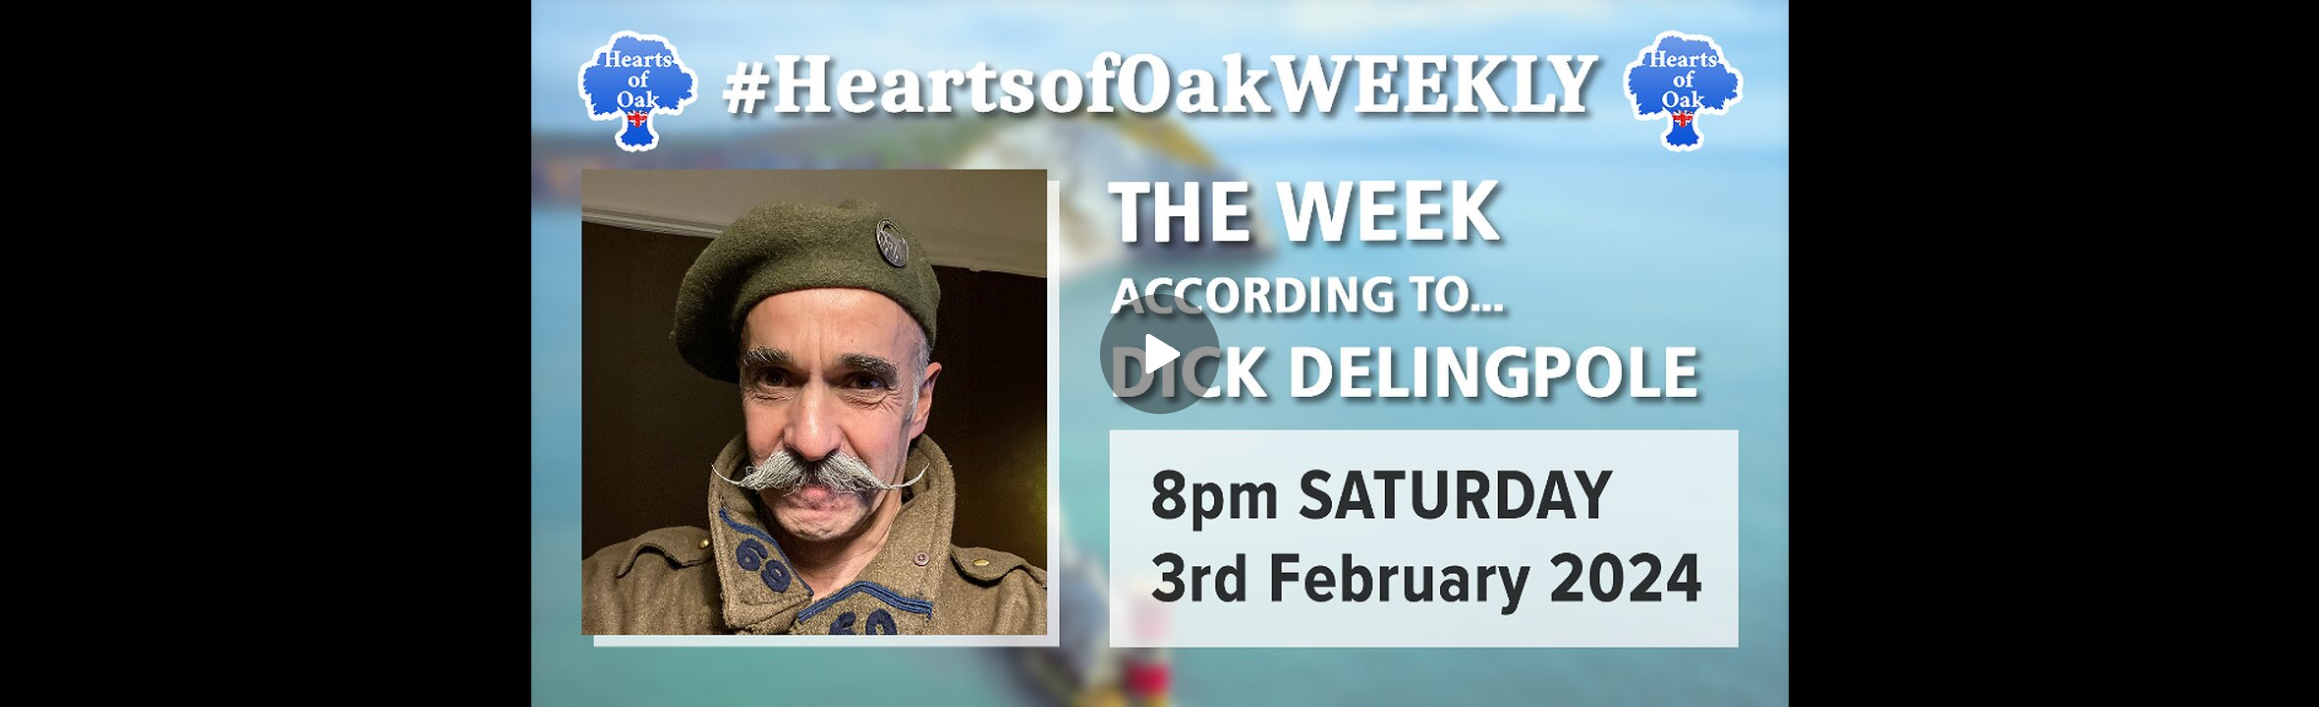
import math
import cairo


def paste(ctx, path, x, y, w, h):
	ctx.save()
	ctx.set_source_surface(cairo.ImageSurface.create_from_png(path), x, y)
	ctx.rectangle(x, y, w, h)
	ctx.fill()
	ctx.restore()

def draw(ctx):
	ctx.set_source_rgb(0, 0, 0)
	ctx.paint()
	paste(ctx, 'media/1.png', 531, 0, 1258, 707)
	ctx.set_source_rgba(0, 0, 0, 0.4)
	ctx.arc(1160, 354, 60, 0, 2 * math.pi)
	ctx.fill()
	ctx.set_source_rgb(1, 1, 1)
	ctx.new_path()
	ctx.move_to(1177.5, 354)
	ctx.line_to(1148.5, 336.5)
	ctx.line_to(1148.5, 371)
	ctx.close_path()
	ctx.fill()
	ctx.save()
	ctx.rectangle(1140, 334, 40, 40)
	ctx.clip()
	ctx.new_path()
	ctx.move_to(1177.5, 354)
	ctx.line_to(1148.5, 336.5)
	ctx.line_to(1148.5, 371)
	ctx.close_path()
	ctx.set_line_width(5.5)
	ctx.set_line_join(cairo.LINE_JOIN_ROUND)
	ctx.stroke()
	ctx.restore()


surface = cairo.ImageSurface(cairo.FORMAT_RGB24, 2319, 707)
ctx = cairo.Context(surface)
options = cairo.FontOptions()
options.set_hint_metrics(cairo.HINT_METRICS_OFF)
options.set_hint_style(cairo.HINT_STYLE_NONE)
ctx.set_font_options(options)
ctx.set_miter_limit(4)
draw(ctx)
surface.write_to_png('image.png')
